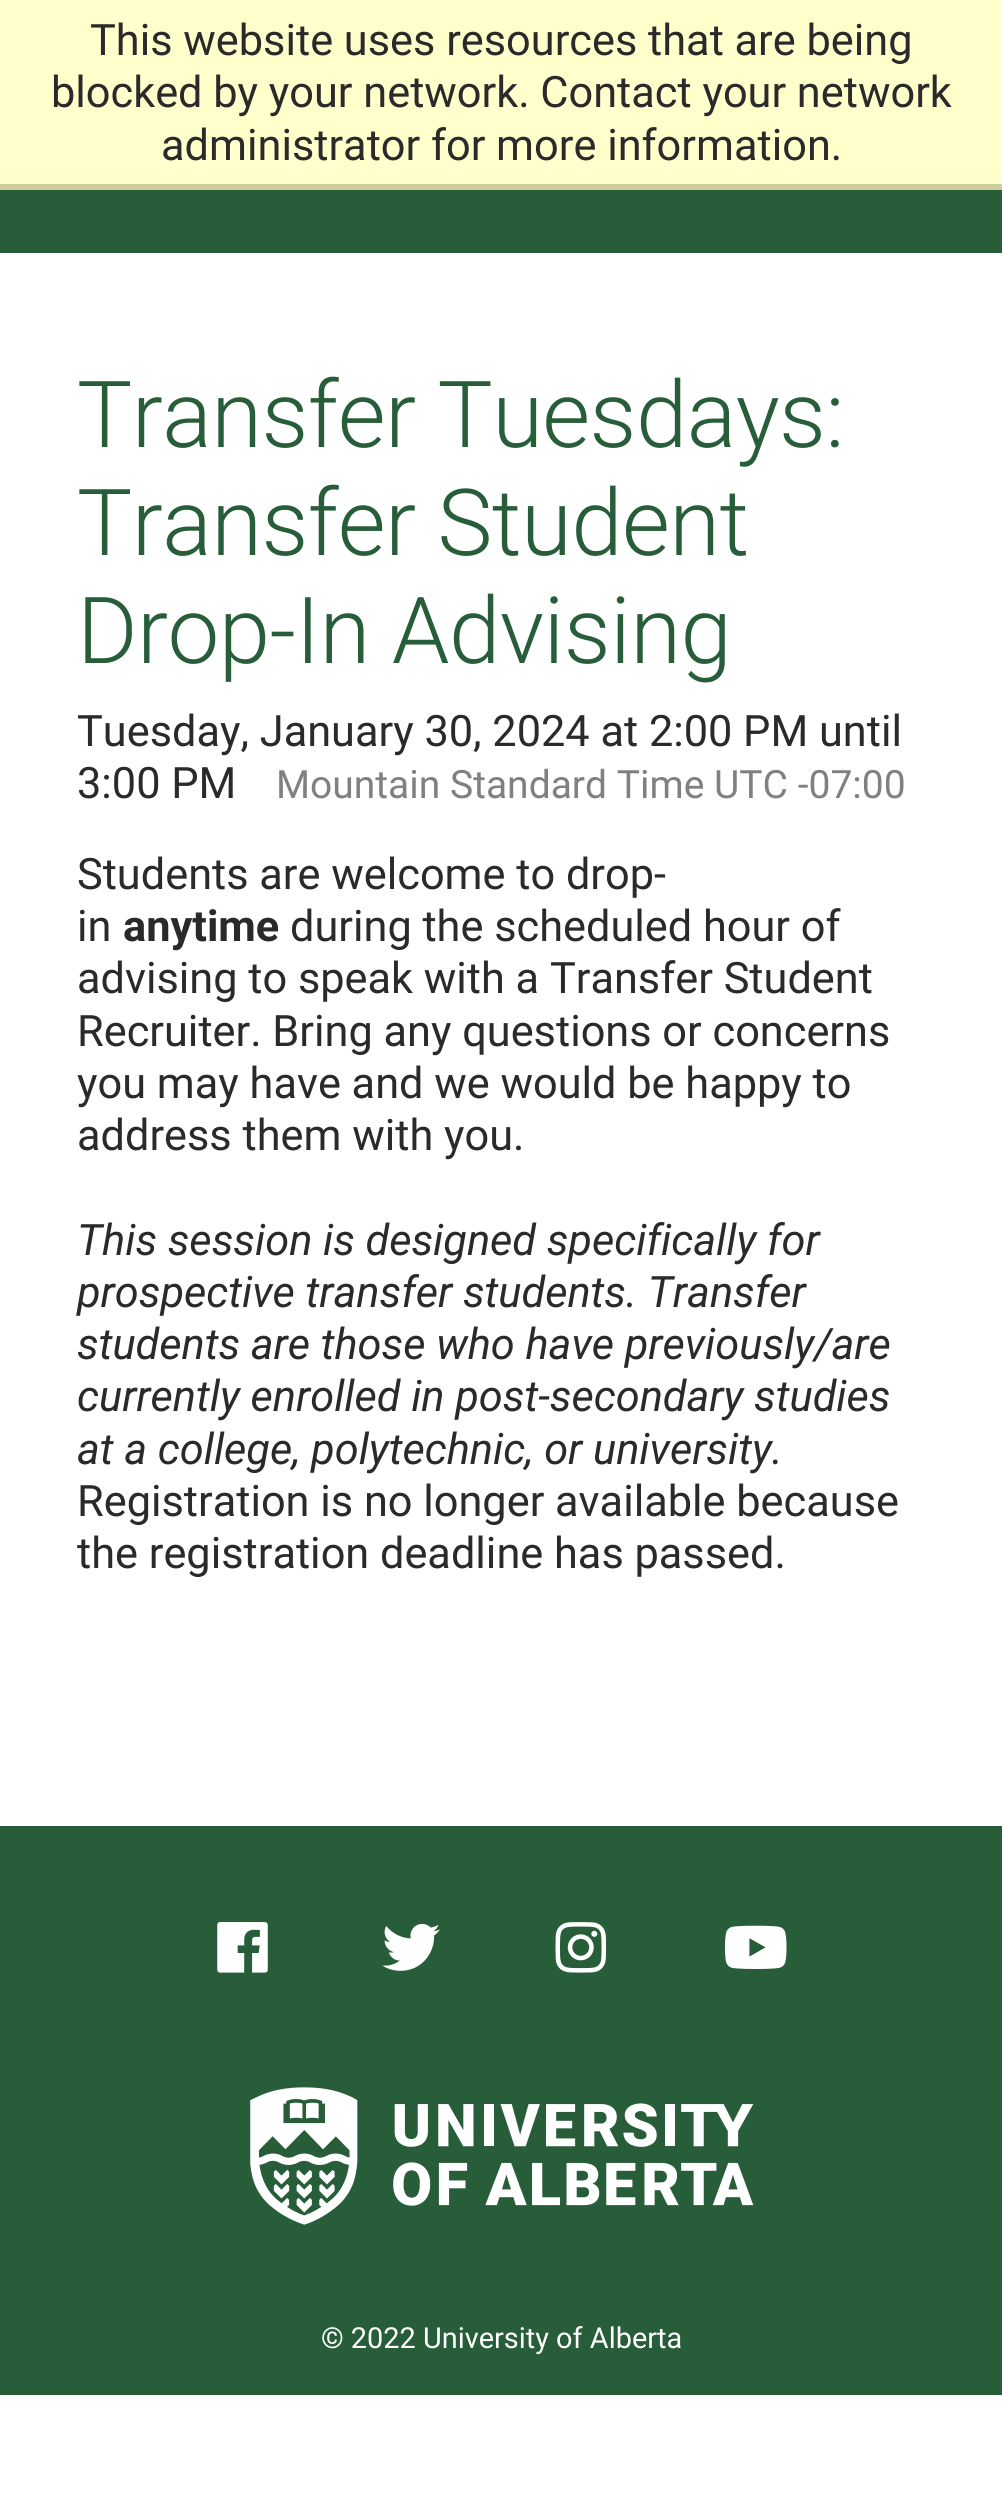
import math
import cairo


def write_spaced(ctx, x, y, s, letter, word):
	ctx.move_to(x, y)
	for ch in s:
		ctx.show_text(ch)
		ctx.rel_move_to(letter + word * (ch == ' '), 0)

def paste(ctx, path, x, y, w, h):
	ctx.save()
	ctx.set_source_surface(cairo.ImageSurface.create_from_png(path), x, y)
	ctx.rectangle(x, y, w, h)
	ctx.fill()
	ctx.restore()

def draw(ctx):
	ctx.set_source_rgb(1, 1, 1)
	ctx.paint()
	ctx.set_source_rgb(1, 1, 0.8)
	ctx.rectangle(0, 0, 1002, 184)
	ctx.fill()
	ctx.set_source_rgb(0.8, 0.8, 0.6)
	ctx.rectangle(0, 184, 1002, 6)
	ctx.fill()
	ctx.select_font_face('Roboto')
	ctx.set_font_size(43.3)
	ctx.set_source_rgb(0.169, 0.161, 0.165)
	for x, y, s in [
		(90, 55, 'This website uses resources that are being'),
		(51, 107, 'blocked by your network. Contact your network'),
		(161, 160, 'administrator for more information.'),
	]:
		ctx.move_to(x, y)
		ctx.show_text(s)
	ctx.set_source_rgb(0.153, 0.365, 0.22)
	ctx.rectangle(0, 190, 1002, 63)
	ctx.fill()
	ctx.select_font_face('Roboto Light')
	ctx.set_font_size(92.5)
	for x, y, s in [
		(77, 447, 'Transfer Tuesdays:'),
		(77, 555, 'Transfer Student'),
		(77, 663, 'Drop-In Advising'),
	]:
		write_spaced(ctx, x, y, s, -0.6, 0)
	ctx.select_font_face('Roboto')
	ctx.set_font_size(43.3)
	ctx.set_source_rgb(0.169, 0.161, 0.165)
	ctx.move_to(77, 746)
	ctx.show_text('Tuesday, January 30, 2024 at 2:00 PM until')
	ctx.move_to(77, 798)
	ctx.show_text('3:00 PM')
	ctx.set_font_size(39)
	ctx.set_source_rgb(0.502, 0.502, 0.502)
	ctx.move_to(276, 798)
	ctx.show_text('Mountain Standard Time UTC -07:00')
	ctx.set_font_size(43.3)
	ctx.set_source_rgb(0.169, 0.161, 0.165)
	ctx.move_to(77, 889)
	ctx.show_text('Students are welcome to drop-')
	ctx.move_to(77, 941)
	ctx.show_text('in')
	ctx.select_font_face('Roboto', cairo.FONT_SLANT_NORMAL, cairo.FONT_WEIGHT_BOLD)
	ctx.move_to(123, 941)
	ctx.show_text('anytime')
	ctx.select_font_face('Roboto')
	for x, y, s in [
		(290, 941, 'during the scheduled hour of'),
		(77, 993, 'advising to speak with a Transfer Student'),
		(77, 1046, 'Recruiter. Bring any questions or concerns'),
		(77, 1098, 'you may have and we would be happy to'),
		(77, 1150, 'address them with you.'),
	]:
		ctx.move_to(x, y)
		ctx.show_text(s)
	ctx.select_font_face('Roboto', cairo.FONT_SLANT_ITALIC)
	for x, y, s in [
		(77, 1255, 'This session is designed specifically for'),
		(77, 1307, 'prospective transfer students. Transfer'),
		(77, 1359, 'students are those who have previously/are'),
		(77, 1411, 'currently enrolled in post-secondary studies'),
		(77, 1464, 'at a college, polytechnic, or university.'),
	]:
		ctx.move_to(x, y)
		ctx.show_text(s)
	ctx.select_font_face('Roboto')
	ctx.move_to(77, 1516)
	ctx.show_text('Registration is no longer available because')
	ctx.move_to(77, 1568)
	ctx.show_text('the registration deadline has passed.')
	ctx.set_source_rgb(0.153, 0.365, 0.22)
	ctx.rectangle(0, 1826, 1002, 569)
	ctx.fill()
	paste(ctx, 'media/1.png', 217, 1922, 51, 51)
	paste(ctx, 'media/2.png', 382, 1923, 58, 48)
	paste(ctx, 'media/3.png', 555, 1922, 52, 51)
	paste(ctx, 'media/4.png', 724, 1925, 63, 44)
	paste(ctx, 'media/5.png', 250, 2087, 504, 138)
	ctx.set_font_size(28.9)
	ctx.set_source_rgb(1, 1, 1)
	ctx.move_to(321, 2348)
	ctx.show_text('© 2022 University of Alberta')


surface = cairo.ImageSurface(cairo.FORMAT_RGB24, 1002, 2519)
ctx = cairo.Context(surface)
options = cairo.FontOptions()
options.set_hint_metrics(cairo.HINT_METRICS_OFF)
options.set_hint_style(cairo.HINT_STYLE_NONE)
ctx.set_font_options(options)
ctx.set_miter_limit(4)
draw(ctx)
surface.write_to_png('image.png')
